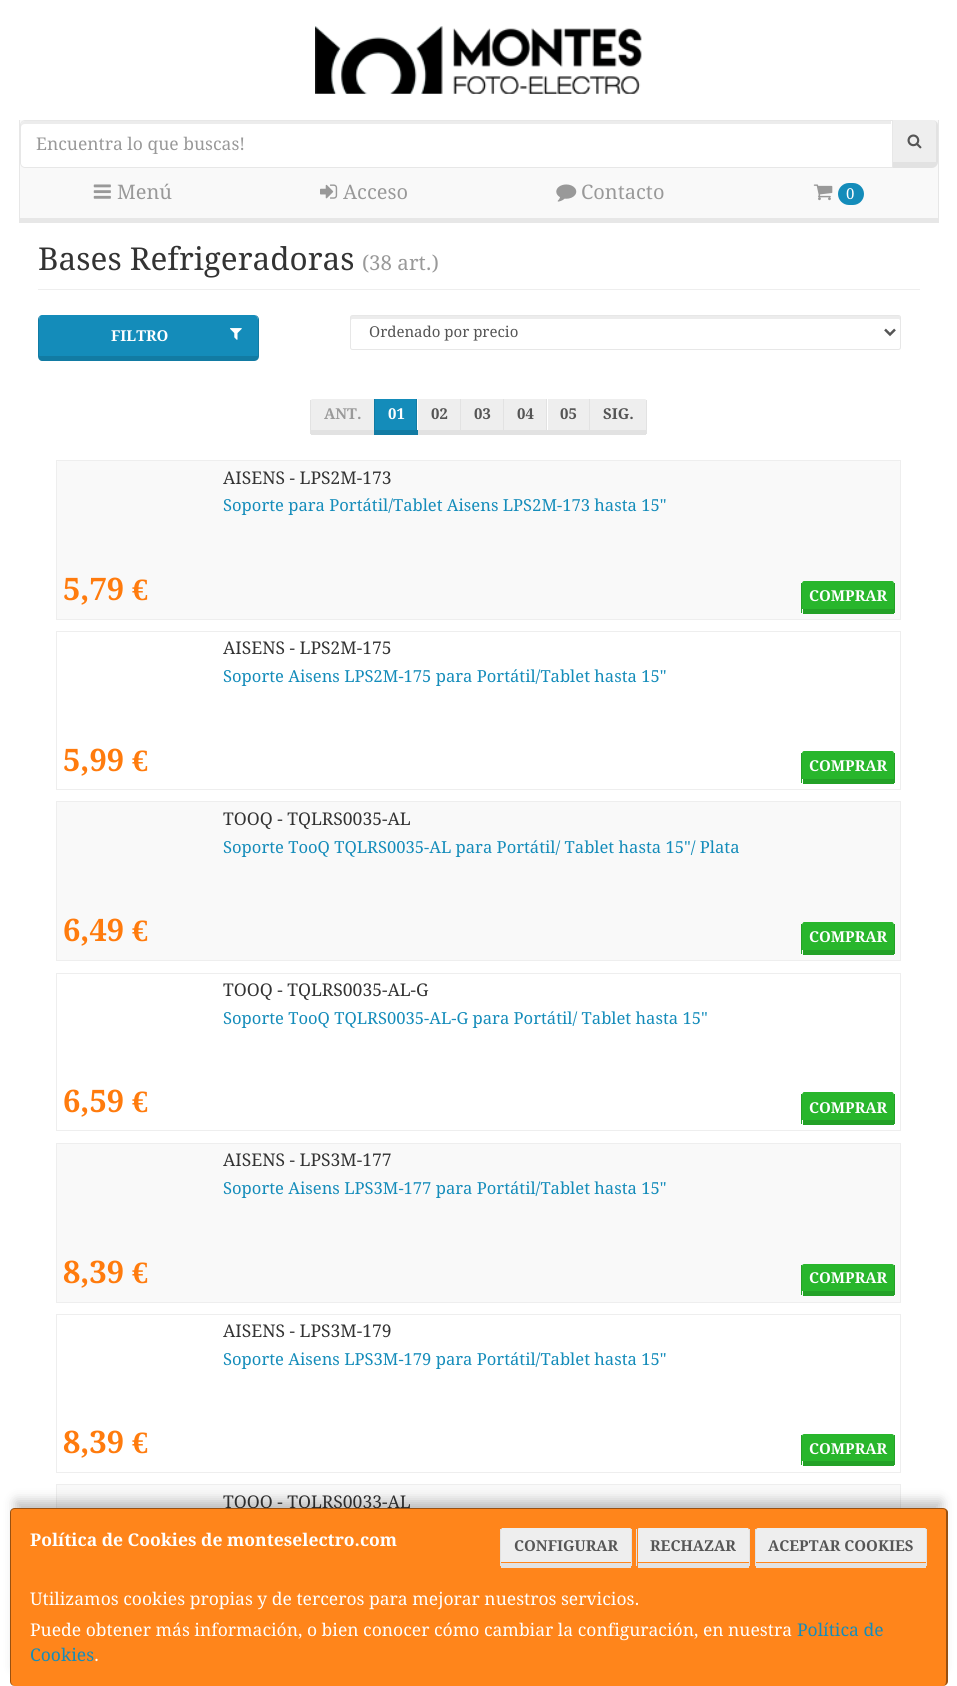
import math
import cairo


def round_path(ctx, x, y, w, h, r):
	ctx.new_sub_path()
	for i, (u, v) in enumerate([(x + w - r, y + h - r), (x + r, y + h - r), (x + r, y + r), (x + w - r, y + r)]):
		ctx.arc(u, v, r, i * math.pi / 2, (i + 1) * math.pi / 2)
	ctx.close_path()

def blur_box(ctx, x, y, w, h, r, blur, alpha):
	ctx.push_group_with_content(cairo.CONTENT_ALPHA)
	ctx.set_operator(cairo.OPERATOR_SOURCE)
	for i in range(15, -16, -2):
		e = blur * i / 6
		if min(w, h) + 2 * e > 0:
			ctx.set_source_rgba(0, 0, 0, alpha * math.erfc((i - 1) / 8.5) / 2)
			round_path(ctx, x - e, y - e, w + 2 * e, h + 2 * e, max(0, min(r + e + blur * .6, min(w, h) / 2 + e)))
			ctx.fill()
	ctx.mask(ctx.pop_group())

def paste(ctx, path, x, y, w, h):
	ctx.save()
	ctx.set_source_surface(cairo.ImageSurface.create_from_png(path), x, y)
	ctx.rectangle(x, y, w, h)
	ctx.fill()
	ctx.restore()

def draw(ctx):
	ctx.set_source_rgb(1, 1, 1)
	ctx.paint()
	paste(ctx, 'media/1.png', 315, 26, 327, 68)
	ctx.set_source_rgb(0.973, 0.973, 0.973)
	ctx.rectangle(20, 120, 918, 98)
	ctx.fill()
	ctx.set_source_rgb(0.906, 0.906, 0.906)
	ctx.rectangle(938, 120, 1, 103)
	ctx.rectangle(19, 218, 920, 5)
	ctx.rectangle(19, 120, 1, 103)
	ctx.fill()
	ctx.set_source_rgb(0.933, 0.933, 0.933)
	ctx.new_path()
	ctx.move_to(892, 120)
	ctx.line_to(932, 120)
	ctx.curve_to(935, 120, 936, 122, 936, 125)
	ctx.line_to(936, 162)
	ctx.line_to(892, 162)
	ctx.close_path()
	ctx.fill()
	ctx.set_source_rgb(0.886, 0.886, 0.886)
	ctx.set_fill_rule(cairo.FILL_RULE_EVEN_ODD)
	ctx.new_path()
	ctx.move_to(891, 120)
	ctx.line_to(932, 120)
	ctx.curve_to(935, 120, 938, 122, 938, 125)
	ctx.line_to(938, 162)
	ctx.curve_to(938, 165, 935, 168, 932, 168)
	ctx.line_to(891, 168)
	ctx.close_path()
	ctx.move_to(892, 120)
	ctx.line_to(932, 120)
	ctx.curve_to(935, 120, 936, 122, 936, 125)
	ctx.line_to(936, 162)
	ctx.line_to(892, 162)
	ctx.close_path()
	ctx.fill()
	ctx.set_source_rgb(1, 1, 1)
	ctx.new_path()
	ctx.move_to(25, 120)
	ctx.line_to(893, 120)
	ctx.line_to(893, 168)
	ctx.line_to(25, 168)
	ctx.curve_to(22, 168, 20, 166, 20, 163)
	ctx.line_to(20, 125)
	ctx.curve_to(20, 122, 22, 120, 25, 120)
	ctx.close_path()
	ctx.fill()
	ctx.set_source_rgb(0.925, 0.925, 0.925)
	ctx.set_fill_rule(cairo.FILL_RULE_WINDING)
	ctx.new_path()
	ctx.move_to(25, 124)
	ctx.line_to(891, 124)
	ctx.line_to(891, 121)
	ctx.line_to(25, 121)
	ctx.curve_to(23, 121, 21, 123, 21, 125)
	ctx.line_to(21, 128)
	ctx.curve_to(21, 125, 23, 124, 25, 124)
	ctx.close_path()
	ctx.fill()
	ctx.new_path()
	ctx.move_to(25, 120.5)
	ctx.line_to(892.5, 120.5)
	ctx.line_to(892.5, 167.5)
	ctx.line_to(25, 167.5)
	ctx.curve_to(22.5, 167.5, 20.5, 165.5, 20.5, 163)
	ctx.line_to(20.5, 125)
	ctx.curve_to(20.5, 122.5, 22.5, 120.5, 25, 120.5)
	ctx.close_path()
	ctx.set_source_rgb(0.906, 0.906, 0.906)
	ctx.set_line_width(1)
	ctx.stroke()
	ctx.save()
	ctx.rectangle(36, 134, 840, 20)
	ctx.clip()
	ctx.select_font_face('Droid Serif')
	ctx.set_font_size(17.5)
	ctx.set_source_rgb(0.6, 0.6, 0.6)
	ctx.move_to(36, 150)
	ctx.show_text('Encuentra lo que buscas!')
	ctx.restore()
	paste(ctx, 'media/2.png', 907, 134, 15, 15)
	paste(ctx, 'media/3.png', 93, 184, 18, 15)
	ctx.select_font_face('Droid Serif')
	ctx.set_font_size(20)
	ctx.set_source_rgb(0.6, 0.6, 0.6)
	ctx.move_to(117, 199)
	ctx.show_text('Menú')
	paste(ctx, 'media/4.png', 320, 184, 18, 15)
	ctx.move_to(343, 199)
	ctx.show_text('Acceso')
	paste(ctx, 'media/5.png', 556, 184, 21, 18)
	ctx.move_to(581, 199)
	ctx.show_text('Contacto')
	paste(ctx, 'media/6.png', 813, 184, 20, 17)
	ctx.set_source_rgb(0.082, 0.549, 0.729)
	round_path(ctx, 838, 183, 26, 22, 11)
	ctx.fill()
	ctx.set_font_size(15)
	ctx.set_source_rgb(1, 1, 1)
	ctx.move_to(846, 199)
	ctx.show_text('0')
	ctx.set_source_rgb(0.933, 0.933, 0.933)
	ctx.rectangle(38, 289, 882, 1)
	ctx.fill()
	ctx.set_font_size(31.5)
	ctx.set_source_rgb(0.2, 0.2, 0.2)
	ctx.move_to(38, 270)
	ctx.show_text('Bases Refrigeradoras')
	ctx.set_font_size(20.5)
	ctx.set_source_rgb(0.6, 0.6, 0.6)
	ctx.move_to(362, 270)
	ctx.show_text('(38 art.)')
	ctx.set_source_rgb(0.082, 0.549, 0.729)
	ctx.new_path()
	ctx.move_to(42, 315)
	ctx.line_to(254, 315)
	ctx.curve_to(256, 315, 258, 317, 258, 320)
	ctx.line_to(258, 356)
	ctx.line_to(39, 356)
	ctx.line_to(39, 320)
	ctx.curve_to(39, 317, 40, 315, 42, 315)
	ctx.close_path()
	ctx.fill()
	ctx.set_source_rgb(0.071, 0.482, 0.639)
	ctx.set_fill_rule(cairo.FILL_RULE_EVEN_ODD)
	ctx.new_path()
	ctx.move_to(42, 315)
	ctx.line_to(254, 315)
	ctx.curve_to(257, 315, 259, 317, 259, 320)
	ctx.line_to(259, 356)
	ctx.curve_to(259, 359, 257, 361, 254, 361)
	ctx.line_to(42, 361)
	ctx.curve_to(40, 361, 38, 359, 38, 356)
	ctx.line_to(38, 320)
	ctx.curve_to(38, 317, 40, 315, 42, 315)
	ctx.close_path()
	ctx.move_to(42, 315)
	ctx.line_to(254, 315)
	ctx.curve_to(256, 315, 258, 317, 258, 320)
	ctx.line_to(258, 356)
	ctx.line_to(39, 356)
	ctx.line_to(39, 320)
	ctx.curve_to(39, 317, 40, 315, 42, 315)
	ctx.close_path()
	ctx.fill()
	ctx.select_font_face('Droid Serif', cairo.FONT_SLANT_NORMAL, cairo.FONT_WEIGHT_BOLD)
	ctx.set_font_size(15)
	ctx.set_source_rgb(1, 1, 1)
	ctx.move_to(111, 341)
	ctx.show_text('FILTRO')
	paste(ctx, 'media/7.png', 230, 328, 12, 12)
	ctx.set_source_rgb(0.925, 0.925, 0.925)
	ctx.set_fill_rule(cairo.FILL_RULE_WINDING)
	ctx.new_path()
	ctx.move_to(352, 319)
	ctx.line_to(899, 319)
	ctx.line_to(900, 320)
	ctx.curve_to(900, 319, 901, 316, 899, 316)
	ctx.line_to(351, 316)
	ctx.line_to(351, 320)
	ctx.close_path()
	ctx.fill()
	round_path(ctx, 350.5, 315.5, 550, 34, 2)
	ctx.set_source_rgb(0.906, 0.906, 0.906)
	ctx.stroke()
	ctx.new_path()
	ctx.move_to(885, 329.5)
	ctx.line_to(890, 334.5)
	ctx.line_to(895, 329.5)
	ctx.set_source_rgb(0.333, 0.333, 0.333)
	ctx.set_line_width(2.5)
	ctx.stroke()
	ctx.select_font_face('Droid Serif')
	ctx.move_to(369, 337)
	ctx.show_text('Ordenado por precio')
	ctx.set_source_rgb(0.933, 0.933, 0.933)
	ctx.new_path()
	ctx.move_to(312, 399)
	ctx.line_to(374, 399)
	ctx.line_to(374, 430)
	ctx.line_to(311, 430)
	ctx.line_to(311, 400)
	ctx.close_path()
	ctx.fill()
	ctx.set_source_rgb(0.886, 0.886, 0.886)
	ctx.rectangle(311, 430, 64, 5)
	ctx.fill()
	ctx.rectangle(310, 400, 1, 34)
	ctx.fill()
	ctx.select_font_face('Droid Serif', cairo.FONT_SLANT_NORMAL, cairo.FONT_WEIGHT_BOLD)
	ctx.set_source_rgb(0.6, 0.6, 0.6)
	ctx.move_to(324, 419)
	ctx.show_text('ANT.')
	ctx.set_source_rgb(0.082, 0.549, 0.729)
	ctx.rectangle(375, 399, 41, 31)
	ctx.fill()
	ctx.set_source_rgb(0.886, 0.886, 0.886)
	ctx.rectangle(460, 399, 1, 36)
	ctx.rectangle(416, 430, 45, 5)
	ctx.fill()
	ctx.set_source_rgb(0.071, 0.482, 0.639)
	ctx.rectangle(416, 399, 1, 36)
	ctx.rectangle(374, 430, 44, 5)
	ctx.rectangle(374, 399, 1, 36)
	ctx.fill()
	ctx.set_source_rgb(1, 1, 1)
	ctx.move_to(388, 419)
	ctx.show_text('01')
	ctx.set_source_rgb(0.933, 0.933, 0.933)
	ctx.rectangle(418, 399, 42, 31)
	ctx.fill()
	ctx.set_source_rgb(0.333, 0.333, 0.333)
	ctx.move_to(431, 419)
	ctx.show_text('02')
	ctx.set_source_rgb(0.933, 0.933, 0.933)
	ctx.rectangle(461, 399, 42, 31)
	ctx.fill()
	ctx.set_source_rgb(0.886, 0.886, 0.886)
	ctx.rectangle(503, 399, 1, 36)
	ctx.rectangle(460, 430, 44, 5)
	ctx.fill()
	ctx.set_source_rgb(0.333, 0.333, 0.333)
	ctx.move_to(474, 419)
	ctx.show_text('03')
	ctx.set_source_rgb(0.933, 0.933, 0.933)
	ctx.rectangle(504, 399, 42, 31)
	ctx.fill()
	ctx.set_source_rgb(0.886, 0.886, 0.886)
	ctx.rectangle(546, 399, 1, 36)
	ctx.rectangle(503, 430, 45, 5)
	ctx.fill()
	ctx.set_source_rgb(0.333, 0.333, 0.333)
	ctx.move_to(517, 419)
	ctx.show_text('04')
	ctx.set_source_rgb(0.933, 0.933, 0.933)
	ctx.rectangle(548, 399, 41, 31)
	ctx.fill()
	ctx.set_source_rgb(0.886, 0.886, 0.886)
	ctx.rectangle(589, 399, 1, 36)
	ctx.rectangle(546, 430, 100, 5)
	ctx.fill()
	ctx.set_source_rgb(0.333, 0.333, 0.333)
	ctx.move_to(560, 419)
	ctx.show_text('05')
	ctx.set_source_rgb(0.933, 0.933, 0.933)
	ctx.new_path()
	ctx.move_to(590, 399)
	ctx.line_to(645, 399)
	ctx.curve_to(646, 399, 646, 400, 646, 401)
	ctx.line_to(646, 430)
	ctx.line_to(590, 430)
	ctx.close_path()
	ctx.fill()
	ctx.set_source_rgb(0.886, 0.886, 0.886)
	ctx.rectangle(646, 400, 1, 34)
	ctx.fill()
	ctx.set_source_rgb(0.333, 0.333, 0.333)
	ctx.move_to(603, 419)
	ctx.show_text('SIG.')
	ctx.set_source_rgb(0.976, 0.976, 0.976)
	ctx.new_path()
	ctx.move_to(61, 460)
	ctx.line_to(896, 460)
	ctx.curve_to(899, 460, 901, 462, 901, 465)
	ctx.line_to(901, 620)
	ctx.line_to(56, 620)
	ctx.line_to(56, 465)
	ctx.curve_to(56, 462, 58, 460, 61, 460)
	ctx.close_path()
	ctx.fill()
	ctx.rectangle(56.5, 460.5, 844, 159)
	ctx.set_source_rgb(0.933, 0.933, 0.933)
	ctx.set_line_width(1)
	ctx.stroke()
	ctx.select_font_face('Droid Serif')
	ctx.set_font_size(17.5)
	ctx.set_source_rgb(0.2, 0.2, 0.2)
	ctx.move_to(223, 484)
	ctx.show_text('AISENS - LPS2M-173')
	ctx.set_font_size(16.6)
	ctx.set_source_rgb(0.082, 0.549, 0.729)
	ctx.move_to(223, 511)
	ctx.show_text('Soporte para Portátil/Tablet Aisens LPS2M-173 hasta 15"')
	ctx.select_font_face('Droid Serif', cairo.FONT_SLANT_NORMAL, cairo.FONT_WEIGHT_BOLD)
	ctx.set_font_size(31)
	ctx.set_source_rgb(1, 0.482, 0.051)
	ctx.move_to(63, 600)
	ctx.show_text('5,79')
	ctx.select_font_face('Liberation Serif', cairo.FONT_SLANT_NORMAL, cairo.FONT_WEIGHT_BOLD)
	ctx.move_to(132, 600)
	ctx.show_text('€')
	ctx.set_source_rgb(0.157, 0.714, 0.173)
	ctx.new_path()
	ctx.move_to(804, 581)
	ctx.line_to(892, 581)
	ctx.curve_to(893, 581, 894, 582, 894, 584)
	ctx.line_to(894, 609)
	ctx.line_to(802, 609)
	ctx.line_to(802, 584)
	ctx.curve_to(802, 582, 803, 581, 804, 581)
	ctx.close_path()
	ctx.fill()
	ctx.set_source_rgb(0.137, 0.631, 0.153)
	ctx.rectangle(894, 583, 1, 30)
	ctx.rectangle(803, 609, 91, 5)
	ctx.rectangle(801, 583, 1, 30)
	ctx.fill()
	ctx.select_font_face('Droid Serif', cairo.FONT_SLANT_NORMAL, cairo.FONT_WEIGHT_BOLD)
	ctx.set_font_size(15)
	ctx.set_source_rgb(1, 1, 1)
	ctx.move_to(809, 601)
	ctx.show_text('COMPRAR')
	ctx.rectangle(56.5, 631.5, 844, 158)
	ctx.set_source_rgb(0.933, 0.933, 0.933)
	ctx.stroke()
	ctx.select_font_face('Droid Serif')
	ctx.set_font_size(17.5)
	ctx.set_source_rgb(0.2, 0.2, 0.2)
	ctx.move_to(223, 654)
	ctx.show_text('AISENS - LPS2M-175')
	ctx.set_font_size(16.6)
	ctx.set_source_rgb(0.082, 0.549, 0.729)
	ctx.move_to(223, 682)
	ctx.show_text('Soporte Aisens LPS2M-175 para Portátil/Tablet hasta 15"')
	ctx.select_font_face('Droid Serif', cairo.FONT_SLANT_NORMAL, cairo.FONT_WEIGHT_BOLD)
	ctx.set_font_size(31)
	ctx.set_source_rgb(1, 0.482, 0.051)
	ctx.move_to(63, 771)
	ctx.show_text('5,99')
	ctx.select_font_face('Liberation Serif', cairo.FONT_SLANT_NORMAL, cairo.FONT_WEIGHT_BOLD)
	ctx.move_to(132, 771)
	ctx.show_text('€')
	ctx.set_source_rgb(0.157, 0.714, 0.173)
	ctx.new_path()
	ctx.move_to(804, 751)
	ctx.line_to(892, 751)
	ctx.curve_to(893, 751, 894, 752, 894, 754)
	ctx.line_to(894, 779)
	ctx.line_to(802, 779)
	ctx.line_to(802, 754)
	ctx.curve_to(802, 752, 803, 751, 804, 751)
	ctx.close_path()
	ctx.fill()
	ctx.set_source_rgb(0.137, 0.631, 0.153)
	ctx.rectangle(894, 753, 1, 30)
	ctx.rectangle(803, 779, 91, 5)
	ctx.rectangle(801, 753, 1, 30)
	ctx.fill()
	ctx.select_font_face('Droid Serif', cairo.FONT_SLANT_NORMAL, cairo.FONT_WEIGHT_BOLD)
	ctx.set_font_size(15)
	ctx.set_source_rgb(1, 1, 1)
	ctx.move_to(809, 771)
	ctx.show_text('COMPRAR')
	ctx.set_source_rgb(0.976, 0.976, 0.976)
	ctx.rectangle(56.5, 801.5, 844, 159)
	ctx.fill_preserve()
	ctx.set_source_rgb(0.933, 0.933, 0.933)
	ctx.stroke()
	ctx.save()
	ctx.rectangle(223, 808, 672, 22)
	ctx.clip()
	ctx.select_font_face('Droid Serif')
	ctx.set_font_size(17.5)
	ctx.set_source_rgb(0.2, 0.2, 0.2)
	ctx.move_to(223, 825)
	ctx.show_text('TOOQ - TQLRS0035-AL')
	ctx.restore()
	ctx.select_font_face('Droid Serif')
	ctx.set_font_size(16.6)
	ctx.set_source_rgb(0.082, 0.549, 0.729)
	ctx.move_to(223, 853)
	ctx.show_text('Soporte TooQ TQLRS0035-AL para Portátil/ Tablet hasta 15"/ Plata')
	ctx.select_font_face('Droid Serif', cairo.FONT_SLANT_NORMAL, cairo.FONT_WEIGHT_BOLD)
	ctx.set_font_size(31)
	ctx.set_source_rgb(1, 0.482, 0.051)
	ctx.move_to(63, 941)
	ctx.show_text('6,49')
	ctx.select_font_face('Liberation Serif', cairo.FONT_SLANT_NORMAL, cairo.FONT_WEIGHT_BOLD)
	ctx.move_to(132, 941)
	ctx.show_text('€')
	ctx.set_source_rgb(0.157, 0.714, 0.173)
	ctx.new_path()
	ctx.move_to(804, 922)
	ctx.line_to(892, 922)
	ctx.curve_to(893, 922, 894, 924, 894, 925)
	ctx.line_to(894, 950)
	ctx.line_to(802, 950)
	ctx.line_to(802, 925)
	ctx.curve_to(802, 924, 803, 922, 804, 922)
	ctx.close_path()
	ctx.fill()
	ctx.set_source_rgb(0.137, 0.631, 0.153)
	ctx.rectangle(894, 924, 1, 30)
	ctx.rectangle(803, 950, 91, 5)
	ctx.rectangle(801, 924, 1, 30)
	ctx.fill()
	ctx.select_font_face('Droid Serif', cairo.FONT_SLANT_NORMAL, cairo.FONT_WEIGHT_BOLD)
	ctx.set_font_size(15)
	ctx.set_source_rgb(1, 1, 1)
	ctx.move_to(809, 942)
	ctx.show_text('COMPRAR')
	ctx.rectangle(56.5, 973.5, 844, 157)
	ctx.set_source_rgb(0.933, 0.933, 0.933)
	ctx.stroke()
	ctx.save()
	ctx.rectangle(223, 979, 672, 22)
	ctx.clip()
	ctx.select_font_face('Droid Serif')
	ctx.set_font_size(17.5)
	ctx.set_source_rgb(0.2, 0.2, 0.2)
	ctx.move_to(223, 996)
	ctx.show_text('TOOQ - TQLRS0035-AL-G')
	ctx.restore()
	ctx.select_font_face('Droid Serif')
	ctx.set_font_size(16.6)
	ctx.set_source_rgb(0.082, 0.549, 0.729)
	ctx.move_to(223, 1024)
	ctx.show_text('Soporte TooQ TQLRS0035-AL-G para Portátil/ Tablet hasta 15"')
	ctx.select_font_face('Droid Serif', cairo.FONT_SLANT_NORMAL, cairo.FONT_WEIGHT_BOLD)
	ctx.set_font_size(31)
	ctx.set_source_rgb(1, 0.482, 0.051)
	ctx.move_to(63, 1112)
	ctx.show_text('6,59')
	ctx.select_font_face('Liberation Serif', cairo.FONT_SLANT_NORMAL, cairo.FONT_WEIGHT_BOLD)
	ctx.move_to(132, 1112)
	ctx.show_text('€')
	ctx.set_source_rgb(0.157, 0.714, 0.173)
	ctx.new_path()
	ctx.move_to(804, 1092)
	ctx.line_to(892, 1092)
	ctx.curve_to(893, 1092, 894, 1094, 894, 1095)
	ctx.line_to(894, 1120)
	ctx.line_to(802, 1120)
	ctx.line_to(802, 1095)
	ctx.curve_to(802, 1094, 803, 1092, 804, 1092)
	ctx.close_path()
	ctx.fill()
	ctx.set_source_rgb(0.137, 0.631, 0.153)
	ctx.rectangle(894, 1094, 1, 30)
	ctx.rectangle(803, 1120, 91, 5)
	ctx.rectangle(801, 1094, 1, 30)
	ctx.fill()
	ctx.select_font_face('Droid Serif', cairo.FONT_SLANT_NORMAL, cairo.FONT_WEIGHT_BOLD)
	ctx.set_font_size(15)
	ctx.set_source_rgb(1, 1, 1)
	ctx.move_to(809, 1113)
	ctx.show_text('COMPRAR')
	ctx.set_source_rgb(0.976, 0.976, 0.976)
	ctx.rectangle(56.5, 1143.5, 844, 159)
	ctx.fill_preserve()
	ctx.set_source_rgb(0.933, 0.933, 0.933)
	ctx.stroke()
	ctx.select_font_face('Droid Serif')
	ctx.set_font_size(17.5)
	ctx.set_source_rgb(0.2, 0.2, 0.2)
	ctx.move_to(223, 1166)
	ctx.show_text('AISENS - LPS3M-177')
	ctx.set_font_size(16.6)
	ctx.set_source_rgb(0.082, 0.549, 0.729)
	ctx.move_to(223, 1194)
	ctx.show_text('Soporte Aisens LPS3M-177 para Portátil/Tablet hasta 15"')
	ctx.select_font_face('Droid Serif', cairo.FONT_SLANT_NORMAL, cairo.FONT_WEIGHT_BOLD)
	ctx.set_font_size(31)
	ctx.set_source_rgb(1, 0.482, 0.051)
	ctx.move_to(63, 1283)
	ctx.show_text('8,39')
	ctx.select_font_face('Liberation Serif', cairo.FONT_SLANT_NORMAL, cairo.FONT_WEIGHT_BOLD)
	ctx.move_to(132, 1283)
	ctx.show_text('€')
	ctx.set_source_rgb(0.157, 0.714, 0.173)
	ctx.new_path()
	ctx.move_to(804, 1264)
	ctx.line_to(892, 1264)
	ctx.curve_to(893, 1264, 894, 1265, 894, 1266)
	ctx.line_to(894, 1291)
	ctx.line_to(802, 1291)
	ctx.line_to(802, 1266)
	ctx.curve_to(802, 1265, 803, 1264, 804, 1264)
	ctx.close_path()
	ctx.fill()
	ctx.set_source_rgb(0.137, 0.631, 0.153)
	ctx.rectangle(894, 1265, 1, 30)
	ctx.rectangle(803, 1291, 91, 5)
	ctx.rectangle(801, 1265, 1, 30)
	ctx.fill()
	ctx.select_font_face('Droid Serif', cairo.FONT_SLANT_NORMAL, cairo.FONT_WEIGHT_BOLD)
	ctx.set_font_size(15)
	ctx.set_source_rgb(1, 1, 1)
	ctx.move_to(809, 1283)
	ctx.show_text('COMPRAR')
	ctx.rectangle(56.5, 1314.5, 844, 158)
	ctx.set_source_rgb(0.933, 0.933, 0.933)
	ctx.stroke()
	ctx.select_font_face('Droid Serif')
	ctx.set_font_size(17.5)
	ctx.set_source_rgb(0.2, 0.2, 0.2)
	ctx.move_to(223, 1337)
	ctx.show_text('AISENS - LPS3M-179')
	ctx.set_font_size(16.6)
	ctx.set_source_rgb(0.082, 0.549, 0.729)
	ctx.move_to(223, 1365)
	ctx.show_text('Soporte Aisens LPS3M-179 para Portátil/Tablet hasta 15"')
	ctx.select_font_face('Droid Serif', cairo.FONT_SLANT_NORMAL, cairo.FONT_WEIGHT_BOLD)
	ctx.set_font_size(31)
	ctx.set_source_rgb(1, 0.482, 0.051)
	ctx.move_to(63, 1453)
	ctx.show_text('8,39')
	ctx.select_font_face('Liberation Serif', cairo.FONT_SLANT_NORMAL, cairo.FONT_WEIGHT_BOLD)
	ctx.move_to(132, 1453)
	ctx.show_text('€')
	ctx.set_source_rgb(0.157, 0.714, 0.173)
	ctx.new_path()
	ctx.move_to(804, 1434)
	ctx.line_to(892, 1434)
	ctx.curve_to(893, 1434, 894, 1435, 894, 1436)
	ctx.line_to(894, 1461)
	ctx.line_to(802, 1461)
	ctx.line_to(802, 1436)
	ctx.curve_to(802, 1435, 803, 1434, 804, 1434)
	ctx.close_path()
	ctx.fill()
	ctx.set_source_rgb(0.137, 0.631, 0.153)
	ctx.rectangle(894, 1435, 1, 30)
	ctx.rectangle(803, 1461, 91, 5)
	ctx.rectangle(801, 1435, 1, 30)
	ctx.fill()
	ctx.select_font_face('Droid Serif', cairo.FONT_SLANT_NORMAL, cairo.FONT_WEIGHT_BOLD)
	ctx.set_font_size(15)
	ctx.set_source_rgb(1, 1, 1)
	ctx.move_to(809, 1454)
	ctx.show_text('COMPRAR')
	ctx.set_source_rgb(0.976, 0.976, 0.976)
	ctx.rectangle(57, 1485, 843, 23)
	ctx.fill()
	ctx.rectangle(56.5, 1484.5, 844, 159)
	ctx.set_source_rgb(0.933, 0.933, 0.933)
	ctx.stroke()
	ctx.save()
	ctx.rectangle(223, 1490, 672, 23)
	ctx.clip()
	ctx.select_font_face('Droid Serif')
	ctx.set_font_size(17.5)
	ctx.set_source_rgb(0.2, 0.2, 0.2)
	ctx.move_to(223, 1508)
	ctx.show_text('TOOQ - TQLRS0033-AL')
	ctx.restore()
	ctx.set_source_rgb(0, 0, 0)
	blur_box(ctx, 16, 1501, 925, 167, 0, 6, 0.25)
	ctx.set_source_rgb(1, 0.522, 0.106)
	round_path(ctx, 10, 1508, 938, 178, 5)
	ctx.fill()
	ctx.set_source_rgba(0, 0, 0, 0.4)
	ctx.set_fill_rule(cairo.FILL_RULE_EVEN_ODD)
	ctx.new_path()
	ctx.move_to(15, 1508)
	ctx.line_to(942, 1508)
	ctx.curve_to(945, 1508, 948, 1510, 948, 1512)
	ctx.line_to(948, 1681)
	ctx.curve_to(948, 1684, 945, 1686, 942, 1686)
	ctx.line_to(15, 1686)
	ctx.curve_to(12, 1686, 10, 1684, 10, 1681)
	ctx.line_to(10, 1512)
	ctx.curve_to(10, 1510, 12, 1508, 15, 1508)
	ctx.close_path()
	ctx.move_to(15, 1509)
	ctx.line_to(942, 1509)
	ctx.curve_to(945, 1509, 946, 1510, 946, 1512)
	ctx.line_to(946, 1681)
	ctx.curve_to(946, 1684, 945, 1686, 942, 1686)
	ctx.line_to(15, 1686)
	ctx.curve_to(13, 1686, 11, 1684, 11, 1681)
	ctx.line_to(11, 1512)
	ctx.curve_to(11, 1510, 13, 1509, 15, 1509)
	ctx.close_path()
	ctx.fill()
	ctx.set_font_size(17.5)
	ctx.set_source_rgb(1, 1, 1)
	ctx.move_to(30, 1546)
	ctx.show_text('Política de Cookies de monteselectro.com')
	ctx.set_source_rgb(0.933, 0.933, 0.933)
	ctx.set_fill_rule(cairo.FILL_RULE_WINDING)
	ctx.new_path()
	ctx.move_to(502, 1528)
	ctx.line_to(630, 1528)
	ctx.curve_to(631, 1528, 631, 1529, 631, 1530)
	ctx.line_to(631, 1562)
	ctx.line_to(501, 1562)
	ctx.line_to(501, 1530)
	ctx.curve_to(501, 1529, 502, 1528, 502, 1528)
	ctx.close_path()
	ctx.fill()
	ctx.set_source_rgb(0.886, 0.886, 0.886)
	ctx.rectangle(631, 1529, 1, 37)
	ctx.rectangle(501, 1563, 130, 5)
	ctx.rectangle(500, 1529, 1, 37)
	ctx.fill()
	ctx.set_font_size(15)
	ctx.set_source_rgb(0.333, 0.333, 0.333)
	ctx.move_to(514, 1551)
	ctx.show_text('CONFIGURAR')
	ctx.set_source_rgb(0.933, 0.933, 0.933)
	ctx.new_path()
	ctx.move_to(639, 1528)
	ctx.line_to(748, 1528)
	ctx.curve_to(748, 1528, 749, 1529, 749, 1530)
	ctx.line_to(749, 1562)
	ctx.line_to(638, 1562)
	ctx.line_to(638, 1530)
	ctx.curve_to(638, 1529, 638, 1528, 639, 1528)
	ctx.close_path()
	ctx.fill()
	ctx.set_source_rgb(0.886, 0.886, 0.886)
	ctx.rectangle(749, 1529, 1, 37)
	ctx.rectangle(638, 1563, 111, 5)
	ctx.rectangle(636, 1529, 1, 37)
	ctx.fill()
	ctx.set_source_rgb(0.333, 0.333, 0.333)
	ctx.move_to(650, 1551)
	ctx.show_text('RECHAZAR')
	ctx.set_source_rgb(0.933, 0.933, 0.933)
	ctx.new_path()
	ctx.move_to(758, 1528)
	ctx.line_to(925, 1528)
	ctx.curve_to(926, 1528, 926, 1529, 926, 1530)
	ctx.line_to(926, 1562)
	ctx.line_to(756, 1562)
	ctx.line_to(756, 1530)
	ctx.curve_to(756, 1529, 757, 1528, 758, 1528)
	ctx.close_path()
	ctx.fill()
	ctx.set_source_rgb(0.886, 0.886, 0.886)
	ctx.rectangle(926, 1529, 1, 37)
	ctx.rectangle(756, 1563, 170, 5)
	ctx.rectangle(755, 1529, 1, 37)
	ctx.fill()
	ctx.set_source_rgb(0.333, 0.333, 0.333)
	ctx.move_to(768, 1551)
	ctx.show_text('ACEPTAR COOKIES')
	ctx.select_font_face('Droid Serif')
	ctx.set_font_size(17.5)
	ctx.set_source_rgb(1, 1, 1)
	ctx.move_to(30, 1605)
	ctx.show_text('Utilizamos cookies propias y de terceros para mejorar nuestros servicios.')
	ctx.move_to(30, 1636)
	ctx.show_text('Puede obtener más información, o bien conocer cómo cambiar la configuración, en nuestra')
	ctx.set_source_rgb(0.082, 0.549, 0.729)
	ctx.move_to(797, 1636)
	ctx.show_text('Política de')
	ctx.move_to(30, 1661)
	ctx.show_text('Cookies')
	ctx.set_source_rgb(1, 1, 1)
	ctx.move_to(94, 1661)
	ctx.show_text('.')


surface = cairo.ImageSurface(cairo.FORMAT_RGB24, 957, 1686)
ctx = cairo.Context(surface)
options = cairo.FontOptions()
options.set_hint_metrics(cairo.HINT_METRICS_OFF)
options.set_hint_style(cairo.HINT_STYLE_NONE)
ctx.set_font_options(options)
ctx.set_miter_limit(4)
draw(ctx)
surface.write_to_png('image.png')
